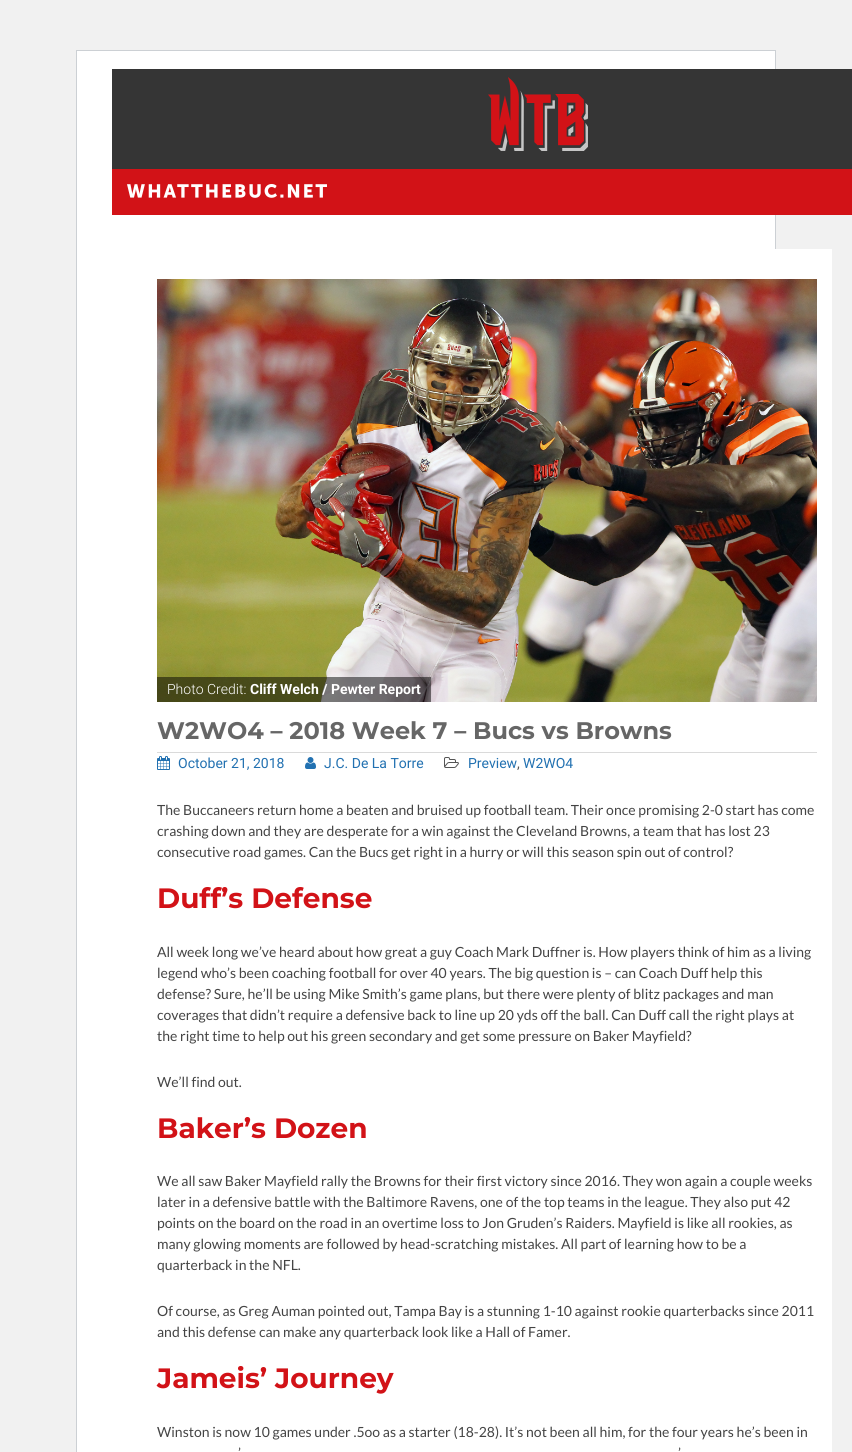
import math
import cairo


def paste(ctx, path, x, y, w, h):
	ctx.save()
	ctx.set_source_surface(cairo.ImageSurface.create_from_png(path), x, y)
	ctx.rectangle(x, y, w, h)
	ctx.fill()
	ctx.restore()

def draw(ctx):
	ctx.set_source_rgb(0.945, 0.945, 0.945)
	ctx.paint()
	ctx.set_source_rgb(1, 1, 1)
	ctx.rectangle(76.5, 50.5, 699, 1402)
	ctx.fill_preserve()
	ctx.set_source_rgb(0.8, 0.816, 0.831)
	ctx.set_line_width(1)
	ctx.stroke()
	ctx.set_source_rgb(0.208, 0.208, 0.208)
	ctx.rectangle(112, 69, 740, 100)
	ctx.fill()
	paste(ctx, 'media/1.png', 488, 77, 100, 74)
	ctx.set_source_rgb(0.824, 0.071, 0.09)
	ctx.rectangle(112, 169, 740, 46)
	ctx.fill()
	paste(ctx, 'media/2.png', 127, 184, 200, 14)
	ctx.set_source_rgb(1, 1, 1)
	ctx.rectangle(775, 249, 57, 1203)
	ctx.fill()
	paste(ctx, 'media/3.png', 157, 279, 660, 423)
	ctx.set_source_rgba(0, 0, 0, 0.5)
	ctx.rectangle(157, 677, 274, 25)
	ctx.fill()
	ctx.select_font_face('Roboto Light')
	ctx.set_font_size(14)
	ctx.set_source_rgb(1, 1, 1)
	ctx.move_to(167, 694)
	ctx.show_text('Photo Credit:')
	ctx.select_font_face('Roboto', cairo.FONT_SLANT_NORMAL, cairo.FONT_WEIGHT_BOLD)
	ctx.move_to(250, 694)
	ctx.show_text('Cliff Welch / Pewter Report')
	ctx.set_source_rgb(0.855, 0.855, 0.855)
	ctx.rectangle(157, 752, 660, 1)
	ctx.fill()
	ctx.select_font_face('Montserrat', cairo.FONT_SLANT_NORMAL, cairo.FONT_WEIGHT_BOLD)
	ctx.set_font_size(24)
	ctx.set_source_rgb(0.4, 0.4, 0.4)
	ctx.move_to(157, 739)
	ctx.show_text('W2WO4 – 2018 Week 7 – Bucs vs Browns')
	paste(ctx, 'media/4.png', 157, 756, 13, 14)
	ctx.select_font_face('Roboto')
	ctx.set_font_size(14)
	ctx.set_source_rgb(0.133, 0.443, 0.694)
	ctx.move_to(178, 768)
	ctx.show_text('October 21, 2018')
	paste(ctx, 'media/5.png', 305, 757, 11, 12)
	ctx.move_to(324, 768)
	ctx.show_text('J.C. De La Torre')
	paste(ctx, 'media/6.png', 444, 757, 15, 11)
	ctx.move_to(468, 768)
	ctx.show_text('Preview')
	ctx.set_source_rgb(0.333, 0.333, 0.333)
	ctx.move_to(517, 768)
	ctx.show_text(',')
	ctx.set_source_rgb(0.133, 0.443, 0.694)
	ctx.move_to(523, 768)
	ctx.show_text('W2WO4')
	ctx.select_font_face('Lato')
	ctx.set_source_rgb(0.267, 0.267, 0.267)
	for x, y, s in [
		(157, 815, 'The Buccaneers return home a beaten and bruised up football team. Their once promising 2-0 start has come'),
		(157, 836, 'crashing down and they are desperate for a win against the Cleveland Browns, a team that has lost 23'),
		(157, 857, 'consecutive road games. Can the Bucs get right in a hurry or will this season spin out of control?'),
	]:
		ctx.move_to(x, y)
		ctx.show_text(s)
	ctx.select_font_face('Montserrat', cairo.FONT_SLANT_NORMAL, cairo.FONT_WEIGHT_BOLD)
	ctx.set_font_size(28)
	ctx.set_source_rgb(0.824, 0.071, 0.09)
	ctx.move_to(157, 908)
	ctx.show_text('Duff’s Defense')
	ctx.select_font_face('Lato')
	ctx.set_font_size(14)
	ctx.set_source_rgb(0.267, 0.267, 0.267)
	for x, y, s in [
		(157, 957, 'All week long we’ve heard about how great a guy Coach Mark Duffner is. How players think of him as a living'),
		(157, 978, 'legend who’s been coaching football for over 40 years. The big question is – can Coach Duff help this'),
		(157, 999, 'defense? Sure, he’ll be using Mike Smith’s game plans, but there were plenty of blitz packages and man'),
		(157, 1020, 'coverages that didn’t require a defensive back to line up 20 yds off the ball. Can Duff call the right plays at'),
		(157, 1041, 'the right time to help out his green secondary and get some pressure on Baker Mayfield?'),
		(157, 1087, 'We’ll find out.'),
	]:
		ctx.move_to(x, y)
		ctx.show_text(s)
	ctx.select_font_face('Montserrat', cairo.FONT_SLANT_NORMAL, cairo.FONT_WEIGHT_BOLD)
	ctx.set_font_size(28)
	ctx.set_source_rgb(0.824, 0.071, 0.09)
	ctx.move_to(157, 1138)
	ctx.show_text('Baker’s Dozen')
	ctx.select_font_face('Lato')
	ctx.set_font_size(14)
	ctx.set_source_rgb(0.267, 0.267, 0.267)
	for x, y, s in [
		(157, 1186, 'We all saw Baker Mayfield rally the Browns for their first victory since 2016. They won again a couple weeks'),
		(157, 1207, 'later in a defensive battle with the Baltimore Ravens, one of the top teams in the league. They also put 42'),
		(157, 1228, 'points on the board on the road in an overtime loss to Jon Gruden’s Raiders. Mayfield is like all rookies, as'),
		(157, 1249, 'many glowing moments are followed by head-scratching mistakes. All part of learning how to be a'),
		(157, 1270, 'quarterback in the NFL.'),
		(157, 1316, 'Of course, as Greg Auman pointed out, Tampa Bay is a stunning 1-10 against rookie quarterbacks since 2011'),
		(157, 1337, 'and this defense can make any quarterback look like a Hall of Famer.'),
	]:
		ctx.move_to(x, y)
		ctx.show_text(s)
	ctx.select_font_face('Montserrat', cairo.FONT_SLANT_NORMAL, cairo.FONT_WEIGHT_BOLD)
	ctx.set_font_size(28)
	ctx.set_source_rgb(0.824, 0.071, 0.09)
	ctx.move_to(157, 1388)
	ctx.show_text('Jameis’ Journey')
	ctx.select_font_face('Lato')
	ctx.set_font_size(14)
	ctx.set_source_rgb(0.267, 0.267, 0.267)
	for x, y, s in [
		(157, 1437, 'Winston is now 10 games under .5oo as a starter (18-28). It’s not been all him, for the four years he’s been in'),
		(238, 1458, '’'),
		(678, 1458, '’'),
	]:
		ctx.move_to(x, y)
		ctx.show_text(s)


surface = cairo.ImageSurface(cairo.FORMAT_RGB24, 852, 1452)
ctx = cairo.Context(surface)
options = cairo.FontOptions()
options.set_hint_metrics(cairo.HINT_METRICS_OFF)
options.set_hint_style(cairo.HINT_STYLE_NONE)
ctx.set_font_options(options)
ctx.set_miter_limit(4)
draw(ctx)
surface.write_to_png('image.png')
